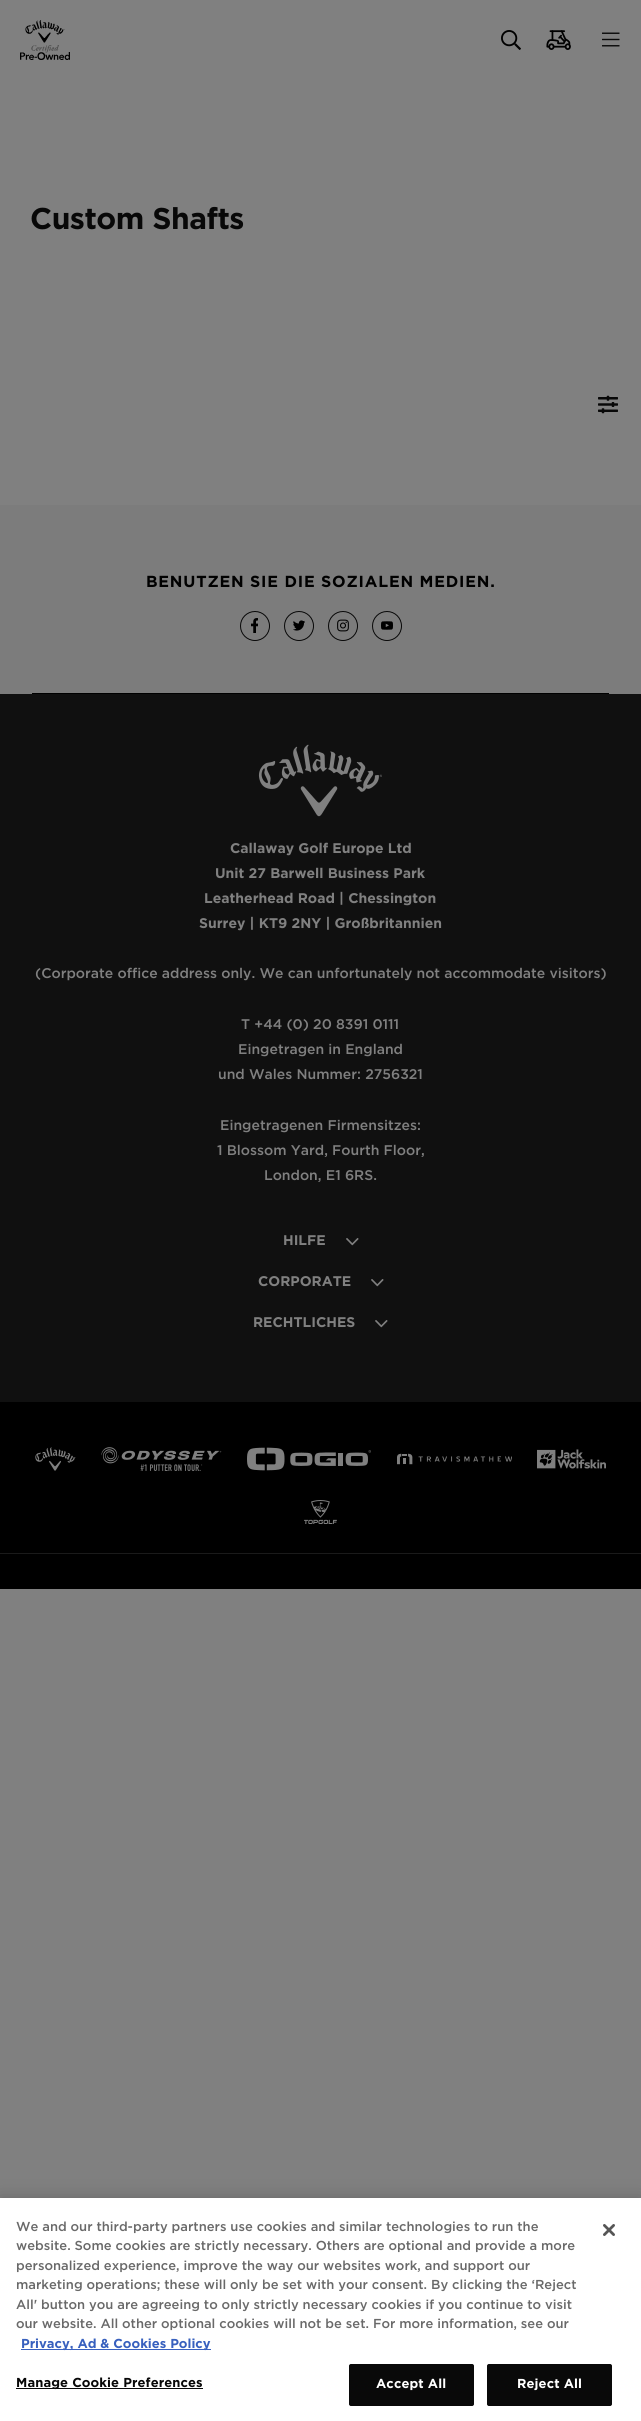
import math
import cairo


def write_spaced(ctx, x, y, s, letter, word):
	ctx.move_to(x, y)
	for ch in s:
		ctx.show_text(ch)
		ctx.rel_move_to(letter + word * (ch == ' '), 0)

def round_path(ctx, x, y, w, h, r):
	ctx.new_sub_path()
	for i, (u, v) in enumerate([(x + w - r, y + h - r), (x + r, y + h - r), (x + r, y + r), (x + w - r, y + r)]):
		ctx.arc(u, v, r, i * math.pi / 2, (i + 1) * math.pi / 2)
	ctx.close_path()

def blur_box(ctx, x, y, w, h, r, blur, alpha):
	ctx.push_group_with_content(cairo.CONTENT_ALPHA)
	ctx.set_operator(cairo.OPERATOR_SOURCE)
	for i in range(15, -16, -2):
		e = blur * i / 6
		if min(w, h) + 2 * e > 0:
			ctx.set_source_rgba(0, 0, 0, alpha * math.erfc((i - 1) / 8.5) / 2)
			round_path(ctx, x - e, y - e, w + 2 * e, h + 2 * e, max(0, min(r + e + blur * .6, min(w, h) / 2 + e)))
			ctx.fill()
	ctx.mask(ctx.pop_group())

def paste(ctx, path, x, y, w, h):
	ctx.save()
	ctx.set_source_surface(cairo.ImageSurface.create_from_png(path), x, y)
	ctx.rectangle(x, y, w, h)
	ctx.fill()
	ctx.restore()

def draw(ctx):
	ctx.set_source_rgb(0.502, 0.502, 0.502)
	ctx.paint()
	paste(ctx, 'media/1.png', 20, 20, 50, 40)
	paste(ctx, 'media/2.png', 501, 30, 20, 20)
	paste(ctx, 'media/3.png', 546, 30, 25, 20)
	paste(ctx, 'media/4.png', 602, 32, 18, 15)
	ctx.select_font_face('Gotham', cairo.FONT_SLANT_NORMAL, cairo.FONT_WEIGHT_BOLD)
	ctx.set_font_size(30)
	ctx.set_source_rgb(0.035, 0.035, 0.035)
	write_spaced(ctx, 30, 229, 'Custom Shafts', -0.5, 0)
	paste(ctx, 'media/5.png', 598, 395, 20, 19)
	ctx.set_source_rgb(0.486, 0.486, 0.486)
	ctx.rectangle(0, 505, 641, 189)
	ctx.fill()
	ctx.set_source_rgb(0, 0, 0)
	ctx.rectangle(32, 693, 577, 1)
	ctx.fill()
	ctx.set_font_size(16)
	write_spaced(ctx, 146, 587, 'BENUTZEN SIE DIE SOZIALEN MEDIEN.', 0.8, 0)
	ctx.new_path()
	ctx.arc(255, 626, 14.5, 0, 2 * math.pi)
	ctx.set_source_rgb(0.035, 0.035, 0.035)
	ctx.set_line_width(1)
	ctx.stroke()
	paste(ctx, 'media/6.png', 251, 618, 7, 15)
	ctx.arc(299, 626, 14.5, 0, 2 * math.pi)
	ctx.stroke()
	paste(ctx, 'media/7.png', 293, 620, 12, 11)
	ctx.arc(343, 626, 14.5, 0, 2 * math.pi)
	ctx.stroke()
	paste(ctx, 'media/8.png', 337, 619, 12, 13)
	ctx.arc(387, 626, 14.5, 0, 2 * math.pi)
	ctx.stroke()
	paste(ctx, 'media/9.png', 381, 621, 12, 9)
	ctx.set_source_rgb(0.063, 0.063, 0.063)
	ctx.rectangle(0, 694, 641, 708)
	ctx.fill()
	paste(ctx, 'media/10.png', 258, 744, 124, 73)
	ctx.set_font_size(14)
	ctx.set_source_rgb(0.502, 0.502, 0.502)
	for x, y, s in [
		(230, 853, 'Callaway Golf Europe Ltd'),
		(215, 878, 'Unit 27 Barwell Business Park'),
		(204, 903, 'Leatherhead Road | Chessington'),
		(199, 928, 'Surrey | KT9 2NY | Großbritannien'),
	]:
		ctx.move_to(x, y)
		ctx.show_text(s)
	ctx.select_font_face('Gotham Medium')
	for x, y, s in [
		(35, 978, '(Corporate office address only. We can unfortunately not accommodate visitors)'),
		(241, 1029, 'T +44 (0) 20 8391 0111'),
		(238, 1054, 'Eingetragen in England'),
		(218, 1079, 'und Wales Nummer: 2756321'),
		(220, 1130, 'Eingetragenen Firmensitzes:'),
		(217, 1155, '1 Blossom Yard, Fourth Floor,'),
		(264, 1180, 'London, E1 6RS.'),
	]:
		ctx.move_to(x, y)
		ctx.show_text(s)
	ctx.select_font_face('Gotham', cairo.FONT_SLANT_NORMAL, cairo.FONT_WEIGHT_BOLD)
	ctx.move_to(283, 1245)
	ctx.show_text('HILFE')
	paste(ctx, 'media/11.png', 346, 1238, 13, 8)
	ctx.move_to(258, 1286)
	ctx.show_text('CORPORATE')
	paste(ctx, 'media/11.png', 371, 1279, 13, 8)
	ctx.move_to(253, 1327)
	ctx.show_text('RECHTLICHES')
	paste(ctx, 'media/11.png', 375, 1320, 13, 8)
	ctx.set_source_rgb(0, 0, 0)
	ctx.rectangle(0, 1402, 641, 187)
	ctx.fill()
	paste(ctx, 'media/12.png', 35, 1447, 41, 24)
	paste(ctx, 'media/13.png', 101, 1447, 121, 24)
	paste(ctx, 'media/14.png', 247, 1447, 124, 24)
	paste(ctx, 'media/15.png', 397, 1453, 115, 12)
	paste(ctx, 'media/16.png', 537, 1449, 69, 20)
	paste(ctx, 'media/17.png', 304, 1500, 33, 24)
	ctx.set_source_rgb(0.102, 0.102, 0.102)
	ctx.rectangle(0, 1553, 641, 1)
	ctx.fill()
	ctx.set_source_rgb(0, 0, 0)
	blur_box(ctx, 0, 2198, 641, 223, 0, 9, 0.2)
	ctx.set_source_rgb(1, 1, 1)
	ctx.rectangle(0, 2198, 641, 223)
	ctx.fill()
	ctx.select_font_face('Gotham Medium')
	ctx.set_font_size(13)
	ctx.set_source_rgb(0.412, 0.412, 0.412)
	for x, y, s in [
		(16, 2231, 'We and our third-party partners use cookies and similar technologies to run the'),
		(16, 2250, 'website. Some cookies are strictly necessary. Others are optional and provide a more'),
		(16, 2270, 'personalized experience, improve the way our websites work, and support our'),
		(16, 2289, 'marketing operations; these will only be set with your consent. By clicking the ‘Reject'),
		(16, 2309, 'All\' button you are agreeing to only strictly necessary cookies if you continue to visit'),
		(16, 2328, 'our website. All other optional cookies will not be set. For more information, see our'),
	]:
		ctx.move_to(x, y)
		ctx.show_text(s)
	ctx.set_source_rgb(0.22, 0.376, 0.745)
	ctx.rectangle(21, 2349, 190, 1)
	ctx.fill()
	ctx.select_font_face('Gotham', cairo.FONT_SLANT_NORMAL, cairo.FONT_WEIGHT_BOLD)
	ctx.move_to(21, 2348)
	ctx.show_text('Privacy, Ad & Cookies Policy')
	ctx.set_source_rgb(0.039, 0.039, 0.039)
	ctx.rectangle(16, 2388, 187, 1)
	ctx.fill()
	ctx.set_source_rgb(0.035, 0.035, 0.035)
	write_spaced(ctx, 16, 2387, 'Manage Cookie Preferences', 0.1, 0)
	ctx.set_source_rgb(0.039, 0.039, 0.039)
	round_path(ctx, 349.5, 2364.5, 124, 41, 1.5)
	ctx.fill_preserve()
	ctx.stroke()
	ctx.set_source_rgb(1, 1, 1)
	write_spaced(ctx, 376, 2388, 'Accept All', 0.1, 0)
	ctx.set_source_rgb(0.039, 0.039, 0.039)
	round_path(ctx, 487.5, 2364.5, 124, 41, 1.5)
	ctx.fill_preserve()
	ctx.stroke()
	ctx.set_source_rgb(1, 1, 1)
	write_spaced(ctx, 517, 2388, 'Reject All', 0.1, 0)
	paste(ctx, 'media/18.png', 603, 2224, 12, 12)


surface = cairo.ImageSurface(cairo.FORMAT_RGB24, 641, 2421)
ctx = cairo.Context(surface)
options = cairo.FontOptions()
options.set_hint_metrics(cairo.HINT_METRICS_OFF)
options.set_hint_style(cairo.HINT_STYLE_NONE)
ctx.set_font_options(options)
ctx.set_miter_limit(4)
draw(ctx)
surface.write_to_png('image.png')
